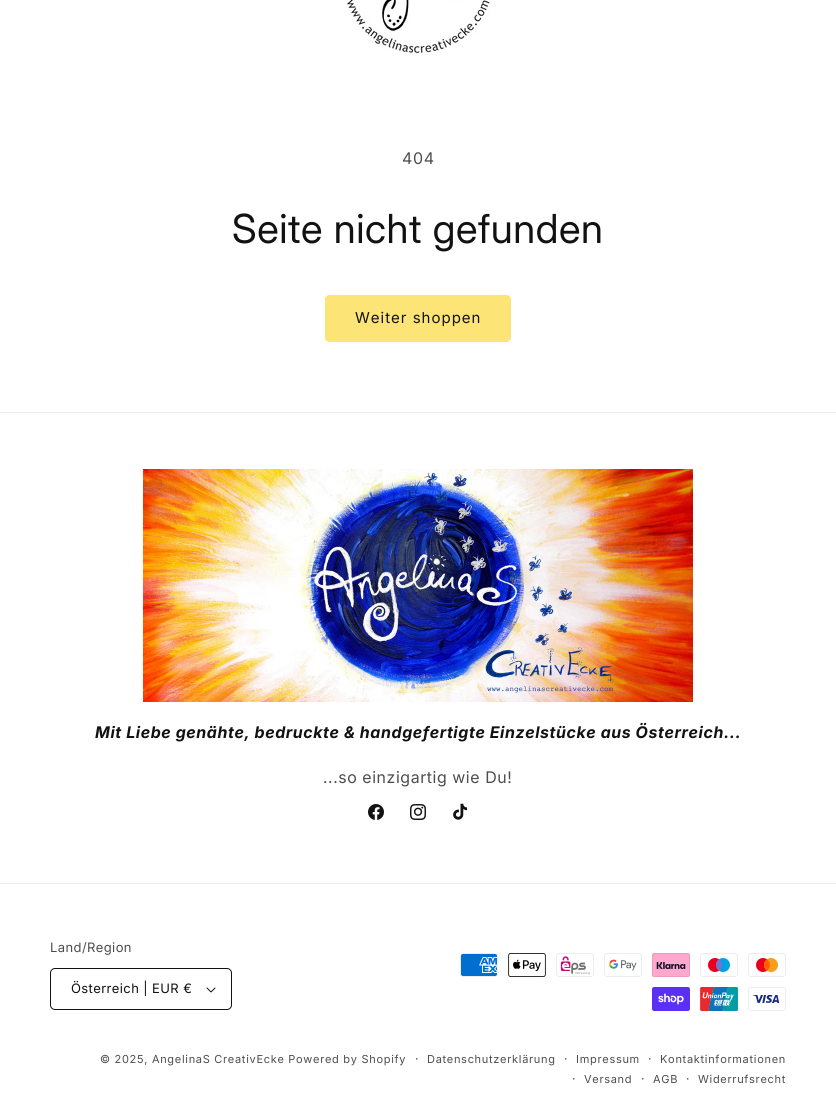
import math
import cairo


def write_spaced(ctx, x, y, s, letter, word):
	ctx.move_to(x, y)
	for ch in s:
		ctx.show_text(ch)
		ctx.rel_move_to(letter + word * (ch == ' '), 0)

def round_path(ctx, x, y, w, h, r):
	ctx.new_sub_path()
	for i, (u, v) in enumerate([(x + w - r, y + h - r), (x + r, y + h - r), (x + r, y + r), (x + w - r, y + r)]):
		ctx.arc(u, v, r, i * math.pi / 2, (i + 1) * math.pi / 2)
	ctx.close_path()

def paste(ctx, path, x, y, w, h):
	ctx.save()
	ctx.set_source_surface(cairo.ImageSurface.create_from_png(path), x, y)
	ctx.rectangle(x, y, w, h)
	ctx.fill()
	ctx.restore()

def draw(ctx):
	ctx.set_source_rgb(1, 1, 1)
	ctx.paint()
	paste(ctx, 'media/1.png', 347, 0, 146, 55)
	ctx.select_font_face('Inter')
	ctx.set_font_size(16)
	ctx.set_source_rgb(0.302, 0.302, 0.302)
	write_spaced(ctx, 402, 164, '404', 0.6, 0)
	ctx.select_font_face('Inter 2')
	ctx.set_font_size(40)
	ctx.set_source_rgb(0.071, 0.071, 0.071)
	write_spaced(ctx, 232, 243, 'Seite nicht gefunden', 0.6, 0)
	ctx.set_source_rgb(0.988, 0.894, 0.467)
	round_path(ctx, 325, 295, 186, 47, 5)
	ctx.fill()
	round_path(ctx, 325.5, 295.5, 185, 46, 4.5)
	ctx.set_line_width(1)
	ctx.stroke()
	ctx.select_font_face('Inter')
	ctx.set_font_size(15)
	ctx.set_source_rgb(0.071, 0.071, 0.071)
	write_spaced(ctx, 355, 323, 'Weiter shoppen', 1, 0)
	ctx.set_source_rgb(0.925, 0.925, 0.925)
	ctx.rectangle(0, 412, 836, 1)
	ctx.fill()
	paste(ctx, 'media/2.png', 143, 469, 550, 233)
	ctx.select_font_face('Inter', cairo.FONT_SLANT_ITALIC, cairo.FONT_WEIGHT_BOLD)
	ctx.set_font_size(16)
	ctx.set_source_rgb(0.071, 0.071, 0.071)
	write_spaced(ctx, 95, 738, 'Mit Liebe genähte, bedruckte & handgefertigte Einzelstücke aus Österreich...', 0.6, 0)
	ctx.select_font_face('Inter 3')
	ctx.set_source_rgb(0.302, 0.302, 0.302)
	write_spaced(ctx, 323, 783, '...so einzigartig wie Du!', 0.6, 0)
	paste(ctx, 'media/3.png', 368, 804, 16, 16)
	paste(ctx, 'media/4.png', 410, 804, 16, 16)
	paste(ctx, 'media/5.png', 453, 803, 15, 17)
	ctx.set_source_rgb(0.925, 0.925, 0.925)
	ctx.rectangle(0, 883, 836, 1)
	ctx.fill()
	ctx.select_font_face('Inter')
	ctx.set_font_size(13)
	ctx.set_source_rgb(0.302, 0.302, 0.302)
	write_spaced(ctx, 50, 952, 'Land/Region', 0.4, 0)
	paste(ctx, 'media/6.png', 206, 987, 10, 6)
	round_path(ctx, 50.5, 968.5, 181, 41, 4.5)
	ctx.set_source_rgb(0.071, 0.071, 0.071)
	ctx.stroke()
	write_spaced(ctx, 71, 993, 'Österreich | EUR €', 0.4, 0)
	paste(ctx, 'media/7.png', 460, 953, 38, 24)
	paste(ctx, 'media/8.png', 508, 953, 38, 24)
	paste(ctx, 'media/9.png', 556, 953, 38, 24)
	paste(ctx, 'media/10.png', 604, 953, 38, 24)
	paste(ctx, 'media/11.png', 652, 953, 38, 24)
	paste(ctx, 'media/12.png', 700, 953, 38, 24)
	paste(ctx, 'media/13.png', 748, 953, 38, 24)
	paste(ctx, 'media/14.png', 652, 987, 38, 24)
	paste(ctx, 'media/15.png', 700, 987, 38, 24)
	paste(ctx, 'media/16.png', 748, 987, 38, 24)
	ctx.set_font_size(11)
	ctx.set_source_rgb(0.302, 0.302, 0.302)
	write_spaced(ctx, 100, 1063, '© 2025, AngelinaS CreativEcke Powered by Shopify', 0.7, 0)
	ctx.set_font_size(12)
	write_spaced(ctx, 415, 1063, '·', 0.7, 0)
	ctx.set_font_size(11)
	write_spaced(ctx, 427, 1063, 'Datenschutzerklärung', 0.7, 0)
	ctx.set_font_size(12)
	write_spaced(ctx, 564, 1063, '·', 0.7, 0)
	ctx.set_font_size(11)
	write_spaced(ctx, 576, 1063, 'Impressum', 0.7, 0)
	ctx.set_font_size(12)
	write_spaced(ctx, 648, 1063, '·', 0.7, 0)
	ctx.set_font_size(11)
	write_spaced(ctx, 660, 1063, 'Kontaktinformationen', 0.7, 0)
	ctx.set_font_size(12)
	write_spaced(ctx, 572, 1083, '·', 0.7, 0)
	ctx.set_font_size(11)
	write_spaced(ctx, 584, 1083, 'Versand', 0.7, 0)
	ctx.set_font_size(12)
	write_spaced(ctx, 641, 1083, '·', 0.7, 0)
	ctx.set_font_size(11)
	write_spaced(ctx, 653, 1083, 'AGB', 0.7, 0)
	ctx.set_font_size(12)
	write_spaced(ctx, 686, 1083, '·', 0.7, 0)
	ctx.set_font_size(11)
	write_spaced(ctx, 698, 1083, 'Widerrufsrecht', 0.7, 0)


surface = cairo.ImageSurface(cairo.FORMAT_RGB24, 836, 1117)
ctx = cairo.Context(surface)
options = cairo.FontOptions()
options.set_hint_metrics(cairo.HINT_METRICS_OFF)
options.set_hint_style(cairo.HINT_STYLE_NONE)
ctx.set_font_options(options)
ctx.set_miter_limit(4)
draw(ctx)
surface.write_to_png('image.png')
